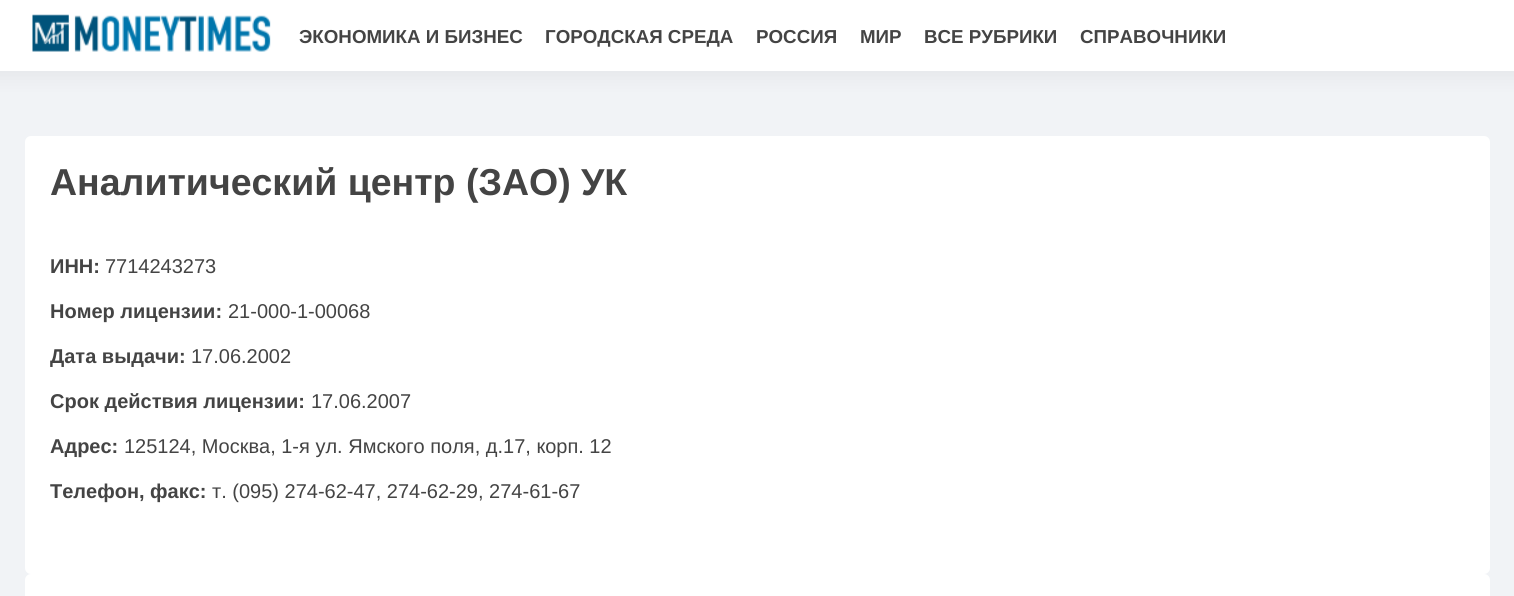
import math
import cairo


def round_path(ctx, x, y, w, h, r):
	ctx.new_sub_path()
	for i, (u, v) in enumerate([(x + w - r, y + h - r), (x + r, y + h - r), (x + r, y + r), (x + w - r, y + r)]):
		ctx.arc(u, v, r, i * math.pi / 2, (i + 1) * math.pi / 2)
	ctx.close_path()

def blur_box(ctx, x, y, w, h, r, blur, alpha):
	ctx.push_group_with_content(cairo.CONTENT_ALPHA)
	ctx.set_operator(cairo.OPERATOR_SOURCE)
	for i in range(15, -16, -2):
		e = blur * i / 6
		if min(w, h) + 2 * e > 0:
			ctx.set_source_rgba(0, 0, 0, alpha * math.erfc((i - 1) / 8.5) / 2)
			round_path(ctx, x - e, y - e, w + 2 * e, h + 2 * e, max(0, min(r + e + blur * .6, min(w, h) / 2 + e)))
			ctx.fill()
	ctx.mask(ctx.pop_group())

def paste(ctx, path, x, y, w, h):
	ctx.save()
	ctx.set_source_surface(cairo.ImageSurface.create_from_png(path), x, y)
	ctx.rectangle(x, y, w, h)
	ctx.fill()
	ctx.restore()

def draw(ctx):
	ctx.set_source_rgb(0.945, 0.953, 0.961)
	ctx.paint()
	ctx.set_source_rgb(0, 0, 0)
	blur_box(ctx, -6, -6, 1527, 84, 0, 9.5, 0.05)
	ctx.set_source_rgb(1, 1, 1)
	ctx.rectangle(0, 0, 1514, 71)
	ctx.fill()
	paste(ctx, 'media/1.png', 32, 14, 239, 38)
	ctx.select_font_face('Liberation Sans', cairo.FONT_SLANT_NORMAL, cairo.FONT_WEIGHT_BOLD)
	ctx.set_font_size(18.75)
	ctx.set_source_rgb(0.267, 0.267, 0.267)
	for x, y, s in [
		(299, 43, 'ЭКОНОМИКА И БИЗНЕС'),
		(545, 43, 'ГОРОДСКАЯ СРЕДА'),
		(756, 43, 'РОССИЯ'),
		(860, 43, 'МИР'),
		(924, 43, 'ВСЕ РУБРИКИ'),
		(1080, 43, 'СПРАВОЧНИКИ'),
	]:
		ctx.move_to(x, y)
		ctx.show_text(s)
	ctx.set_source_rgb(1, 1, 1)
	round_path(ctx, 25, 136, 1465, 438, 6)
	ctx.fill()
	ctx.set_font_size(37.5)
	ctx.set_source_rgb(0.267, 0.267, 0.267)
	ctx.move_to(50, 195)
	ctx.show_text('Аналитический центр (ЗАО) УК')
	ctx.set_font_size(20)
	ctx.move_to(50, 273)
	ctx.show_text('ИНН:')
	ctx.select_font_face('Liberation Sans')
	ctx.move_to(105, 273)
	ctx.show_text('7714243273')
	ctx.select_font_face('Liberation Sans', cairo.FONT_SLANT_NORMAL, cairo.FONT_WEIGHT_BOLD)
	ctx.move_to(50, 318)
	ctx.show_text('Номер лицензии:')
	ctx.select_font_face('Liberation Sans')
	ctx.move_to(228, 318)
	ctx.show_text('21-000-1-00068')
	ctx.select_font_face('Liberation Sans', cairo.FONT_SLANT_NORMAL, cairo.FONT_WEIGHT_BOLD)
	ctx.move_to(50, 363)
	ctx.show_text('Дата выдачи:')
	ctx.select_font_face('Liberation Sans')
	ctx.move_to(191, 363)
	ctx.show_text('17.06.2002')
	ctx.select_font_face('Liberation Sans', cairo.FONT_SLANT_NORMAL, cairo.FONT_WEIGHT_BOLD)
	ctx.move_to(50, 408)
	ctx.show_text('Срок действия лицензии:')
	ctx.select_font_face('Liberation Sans')
	ctx.move_to(311, 408)
	ctx.show_text('17.06.2007')
	ctx.select_font_face('Liberation Sans', cairo.FONT_SLANT_NORMAL, cairo.FONT_WEIGHT_BOLD)
	ctx.move_to(50, 453)
	ctx.show_text('Адрес:')
	ctx.select_font_face('Liberation Sans')
	ctx.move_to(124, 453)
	ctx.show_text('125124, Москва, 1-я ул. Ямского поля, д.17, корп. 12')
	ctx.select_font_face('Liberation Sans', cairo.FONT_SLANT_NORMAL, cairo.FONT_WEIGHT_BOLD)
	ctx.move_to(50, 498)
	ctx.show_text('Телефон, факс:')
	ctx.select_font_face('Liberation Sans')
	ctx.move_to(212, 498)
	ctx.show_text('т. (095) 274-62-47, 274-62-29, 274-61-67')
	ctx.set_source_rgb(1, 1, 1)
	round_path(ctx, 25, 574, 1465, 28, 6)
	ctx.fill()


surface = cairo.ImageSurface(cairo.FORMAT_RGB24, 1514, 596)
ctx = cairo.Context(surface)
options = cairo.FontOptions()
options.set_hint_metrics(cairo.HINT_METRICS_OFF)
options.set_hint_style(cairo.HINT_STYLE_NONE)
ctx.set_font_options(options)
ctx.set_miter_limit(4)
draw(ctx)
surface.write_to_png('image.png')
